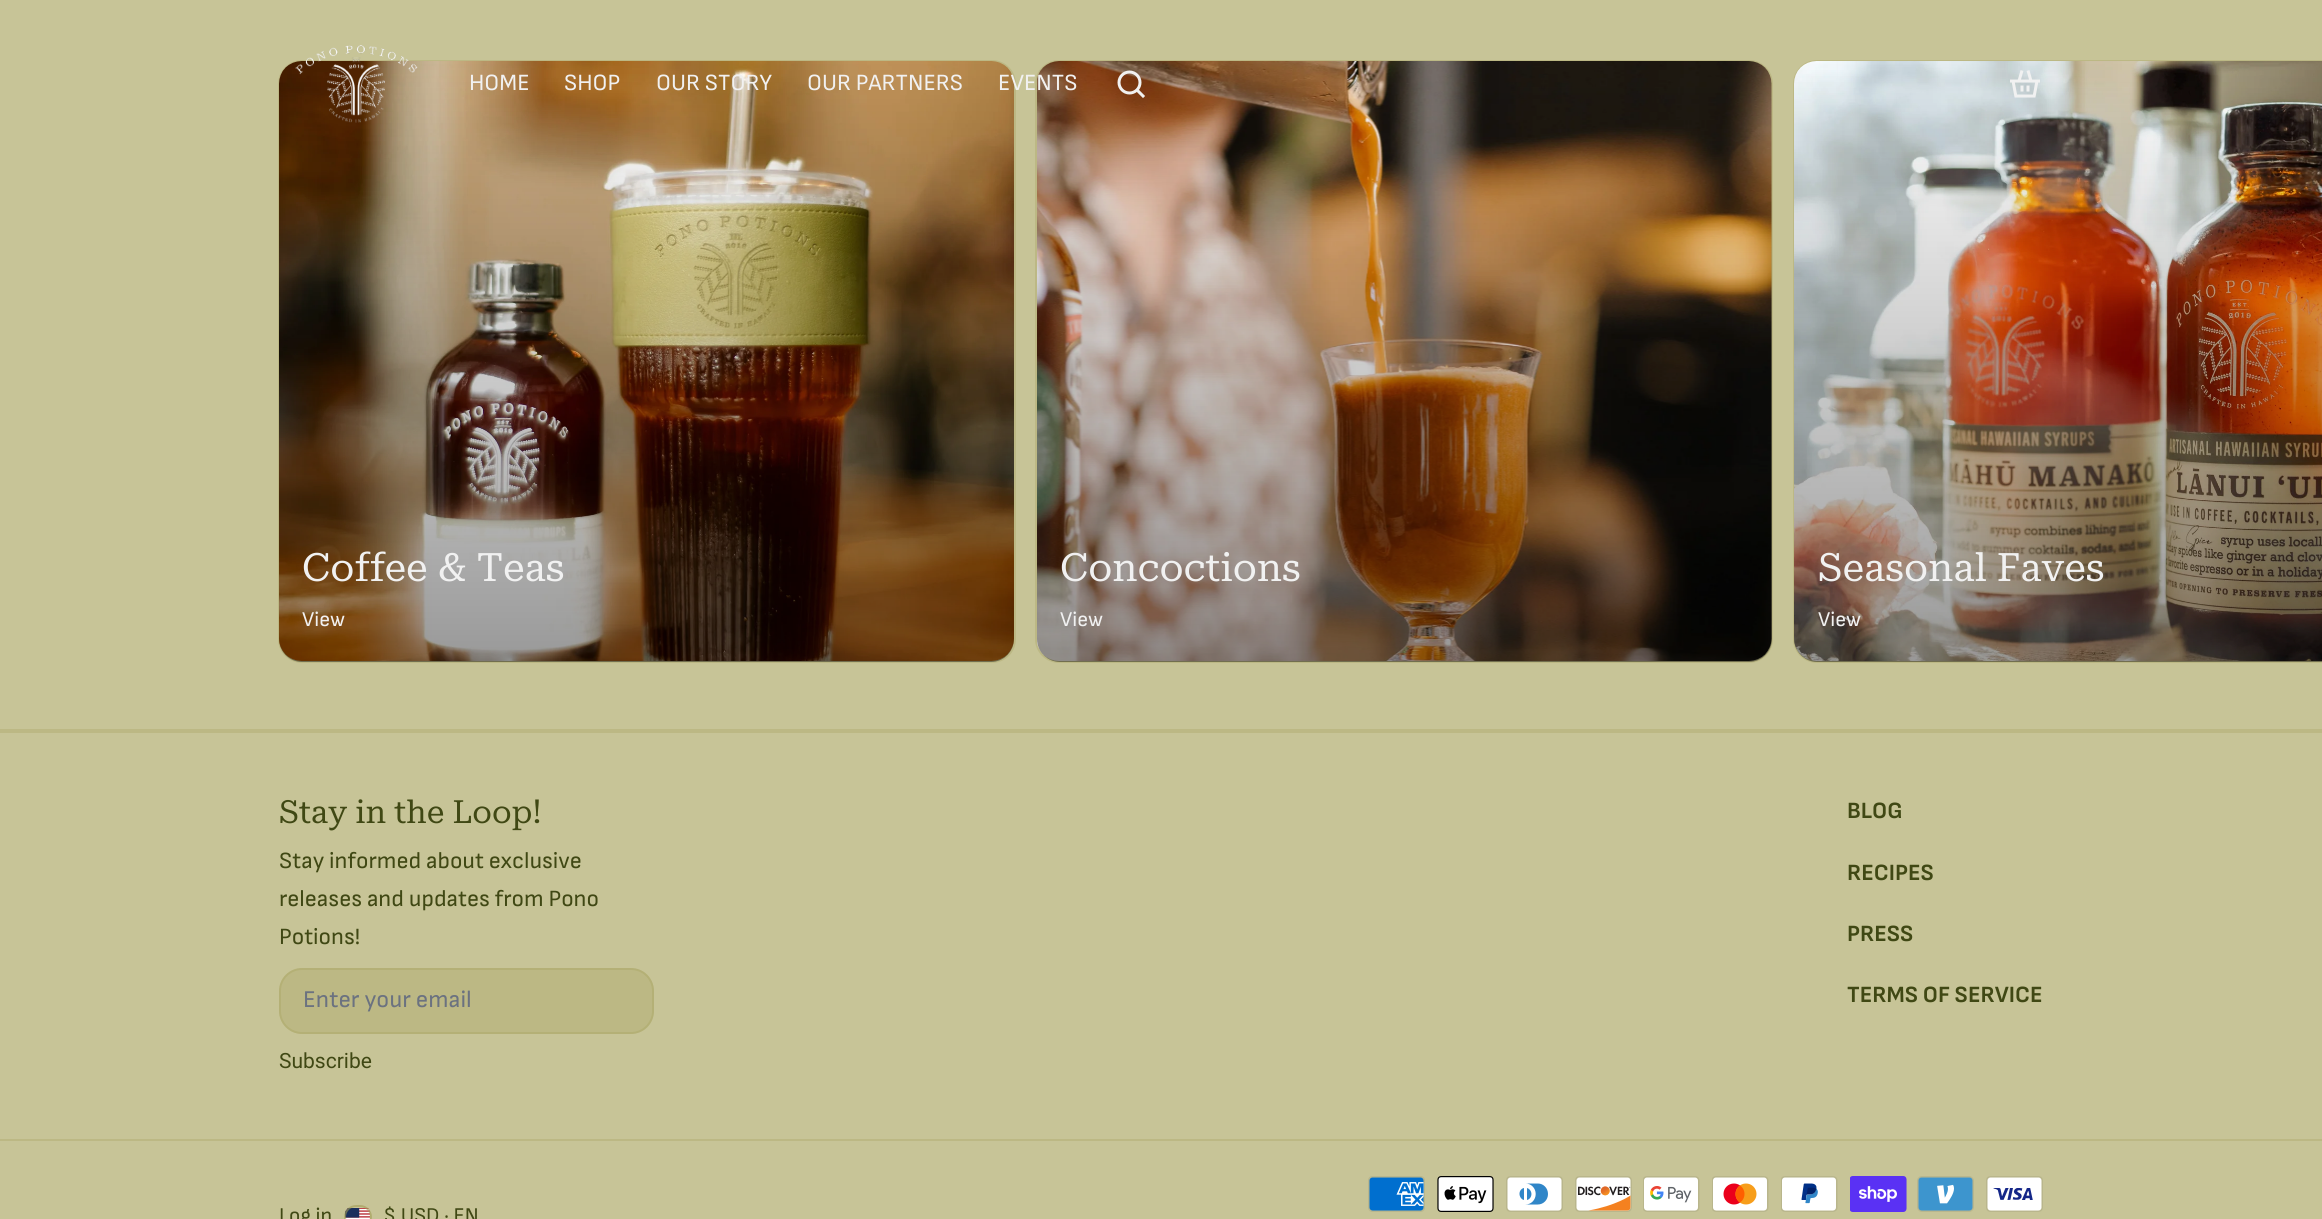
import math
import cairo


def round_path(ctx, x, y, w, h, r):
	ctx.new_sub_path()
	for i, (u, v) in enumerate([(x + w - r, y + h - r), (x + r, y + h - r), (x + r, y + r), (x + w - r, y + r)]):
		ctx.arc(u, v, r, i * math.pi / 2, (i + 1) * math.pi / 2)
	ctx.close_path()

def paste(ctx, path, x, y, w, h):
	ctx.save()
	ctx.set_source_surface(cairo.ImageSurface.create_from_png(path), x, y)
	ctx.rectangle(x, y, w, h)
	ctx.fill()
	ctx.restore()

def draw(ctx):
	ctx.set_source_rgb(0.78, 0.769, 0.592)
	ctx.paint()
	round_path(ctx, 279, 61, 736, 601, 23)
	ctx.set_source_rgb(0.737, 0.722, 0.518)
	ctx.stroke()
	paste(ctx, 'media/4.png', 279, 61, 735, 600)
	gradient = cairo.LinearGradient(647, 61, 647, 662)
	gradient.add_color_stop_rgba(0, 0, 0, 0, 0)
	gradient.add_color_stop_rgba(1, 0, 0, 0, 0.4)
	ctx.set_source(gradient)
	round_path(ctx, 279, 62, 735, 600, 23)
	ctx.fill()
	paste(ctx, 'media/1.png', 295, 45, 123, 78)
	ctx.select_font_face('Sofia Sans')
	ctx.set_font_size(23.25)
	ctx.set_source_rgb(0.945, 0.945, 0.945)
	for x, y, s in [
		(469, 90, 'HOME'),
		(564, 90, 'SHOP'),
		(656, 90, 'OUR STORY'),
		(807, 90, 'OUR PARTNERS'),
	]:
		ctx.move_to(x, y)
		ctx.show_text(s)
	round_path(ctx, 1036, 61, 736, 601, 23)
	ctx.set_source_rgb(0.737, 0.722, 0.518)
	ctx.stroke()
	paste(ctx, 'media/5.png', 1037, 61, 735, 600)
	gradient = cairo.LinearGradient(1404, 61, 1404, 662)
	gradient.add_color_stop_rgba(0, 0, 0, 0, 0)
	gradient.add_color_stop_rgba(1, 0, 0, 0, 0.4)
	ctx.set_source(gradient)
	round_path(ctx, 1037, 62, 735, 600, 23)
	ctx.fill()
	ctx.set_source_rgb(0.945, 0.945, 0.945)
	ctx.move_to(998, 90)
	ctx.show_text('EVENTS')
	paste(ctx, 'media/2.png', 1117, 70, 28, 28)
	round_path(ctx, 1794, 61, 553, 601, 23)
	ctx.set_source_rgb(0.737, 0.722, 0.518)
	ctx.stroke()
	paste(ctx, 'media/6.png', 1794, 61, 528, 600)
	gradient = cairo.LinearGradient(2162, 61, 2162, 662)
	gradient.add_color_stop_rgba(0, 0, 0, 0, 0)
	gradient.add_color_stop_rgba(1, 0, 0, 0, 0.4)
	ctx.set_source(gradient)
	ctx.new_path()
	ctx.move_to(1817, 62)
	ctx.line_to(2322, 62)
	ctx.line_to(2322, 662)
	ctx.line_to(1817, 662)
	ctx.curve_to(1804.5, 662, 1794, 651.5, 1794, 639)
	ctx.line_to(1794, 85)
	ctx.curve_to(1794, 72.5, 1804.5, 62, 1817, 62)
	ctx.close_path()
	ctx.fill()
	paste(ctx, 'media/3.png', 2010, 70, 30, 28)
	ctx.set_source_rgb(0.737, 0.722, 0.518)
	ctx.rectangle(0, 729, 2322, 4)
	ctx.fill()
	ctx.select_font_face('Roboto Serif')
	ctx.set_font_size(39.25)
	ctx.set_source_rgb(0.945, 0.945, 0.945)
	ctx.move_to(302, 581)
	ctx.show_text('Coffee & Teas')
	ctx.select_font_face('Sofia Sans')
	ctx.set_font_size(21)
	ctx.move_to(302, 626)
	ctx.show_text('View')
	ctx.select_font_face('Roboto Serif')
	ctx.set_font_size(39.25)
	ctx.move_to(1060, 581)
	ctx.show_text('Concoctions')
	ctx.select_font_face('Sofia Sans')
	ctx.set_font_size(21)
	ctx.move_to(1060, 626)
	ctx.show_text('View')
	ctx.select_font_face('Roboto Serif')
	ctx.set_font_size(39.25)
	ctx.move_to(1818, 581)
	ctx.show_text('Seasonal Faves')
	ctx.select_font_face('Sofia Sans')
	ctx.set_font_size(21)
	ctx.move_to(1818, 626)
	ctx.show_text('View')
	ctx.select_font_face('Roboto Serif')
	ctx.set_font_size(32)
	ctx.set_source_rgb(0.251, 0.282, 0.082)
	ctx.move_to(279, 823)
	ctx.show_text('Stay in the Loop!')
	ctx.select_font_face('Sofia Sans')
	ctx.set_font_size(23.25)
	for x, y, s in [
		(279, 868, 'Stay informed about exclusive'),
		(279, 906, 'releases and updates from Pono'),
		(279, 944, 'Potions!'),
	]:
		ctx.move_to(x, y)
		ctx.show_text(s)
	ctx.set_source_rgb(0.737, 0.722, 0.518)
	round_path(ctx, 279, 968, 375, 66, 23)
	ctx.fill()
	round_path(ctx, 280, 969, 373, 64, 22)
	ctx.set_source_rgba(0.635, 0.616, 0.337, 0.3)
	ctx.stroke()
	ctx.set_font_size(24)
	ctx.set_source_rgb(0.42, 0.447, 0.502)
	ctx.move_to(303, 1007)
	ctx.show_text('Enter your email')
	ctx.select_font_face('Roboto')
	ctx.set_font_size(21)
	ctx.set_source_rgb(0.251, 0.282, 0.082)
	ctx.move_to(279, 1068)
	ctx.show_text('Subscribe')
	ctx.select_font_face('Sofia Sans', cairo.FONT_SLANT_NORMAL, cairo.FONT_WEIGHT_BOLD)
	ctx.set_font_size(23.25)
	for x, y, s in [
		(1847, 818, 'BLOG'),
		(1847, 880, 'RECIPES'),
		(1847, 941, 'PRESS'),
		(1847, 1002, 'TERMS OF SERVICE'),
	]:
		ctx.move_to(x, y)
		ctx.show_text(s)
	ctx.set_source_rgb(0.737, 0.722, 0.518)
	ctx.rectangle(0, 1139, 2322, 2)
	ctx.fill()
	ctx.select_font_face('Sofia Sans')
	ctx.set_font_size(21)
	ctx.set_source_rgb(0.251, 0.282, 0.082)
	ctx.move_to(279, 1222)
	ctx.show_text('Log in')
	paste(ctx, 'media/7.png', 345, 1208, 25, 11)
	round_path(ctx, 345, 1206, 26, 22, 11)
	ctx.set_source_rgba(0.635, 0.616, 0.337, 0.6)
	ctx.stroke()
	ctx.set_source_rgb(0.251, 0.282, 0.082)
	ctx.move_to(383, 1222)
	ctx.show_text('$ USD · EN')
	paste(ctx, 'media/8.png', 1368, 1176, 57, 36)
	paste(ctx, 'media/9.png', 1437, 1176, 57, 36)
	paste(ctx, 'media/10.png', 1506, 1176, 57, 36)
	paste(ctx, 'media/11.png', 1575, 1176, 57, 36)
	paste(ctx, 'media/12.png', 1643, 1176, 57, 36)
	paste(ctx, 'media/13.png', 1712, 1176, 57, 36)
	paste(ctx, 'media/14.png', 1781, 1176, 57, 36)
	paste(ctx, 'media/15.png', 1850, 1176, 57, 36)
	paste(ctx, 'media/16.png', 1917, 1176, 57, 36)
	paste(ctx, 'media/17.png', 1986, 1176, 57, 36)


surface = cairo.ImageSurface(cairo.FORMAT_RGB24, 2322, 1219)
ctx = cairo.Context(surface)
options = cairo.FontOptions()
options.set_hint_metrics(cairo.HINT_METRICS_OFF)
options.set_hint_style(cairo.HINT_STYLE_NONE)
ctx.set_font_options(options)
ctx.set_miter_limit(4)
draw(ctx)
surface.write_to_png('image.png')
